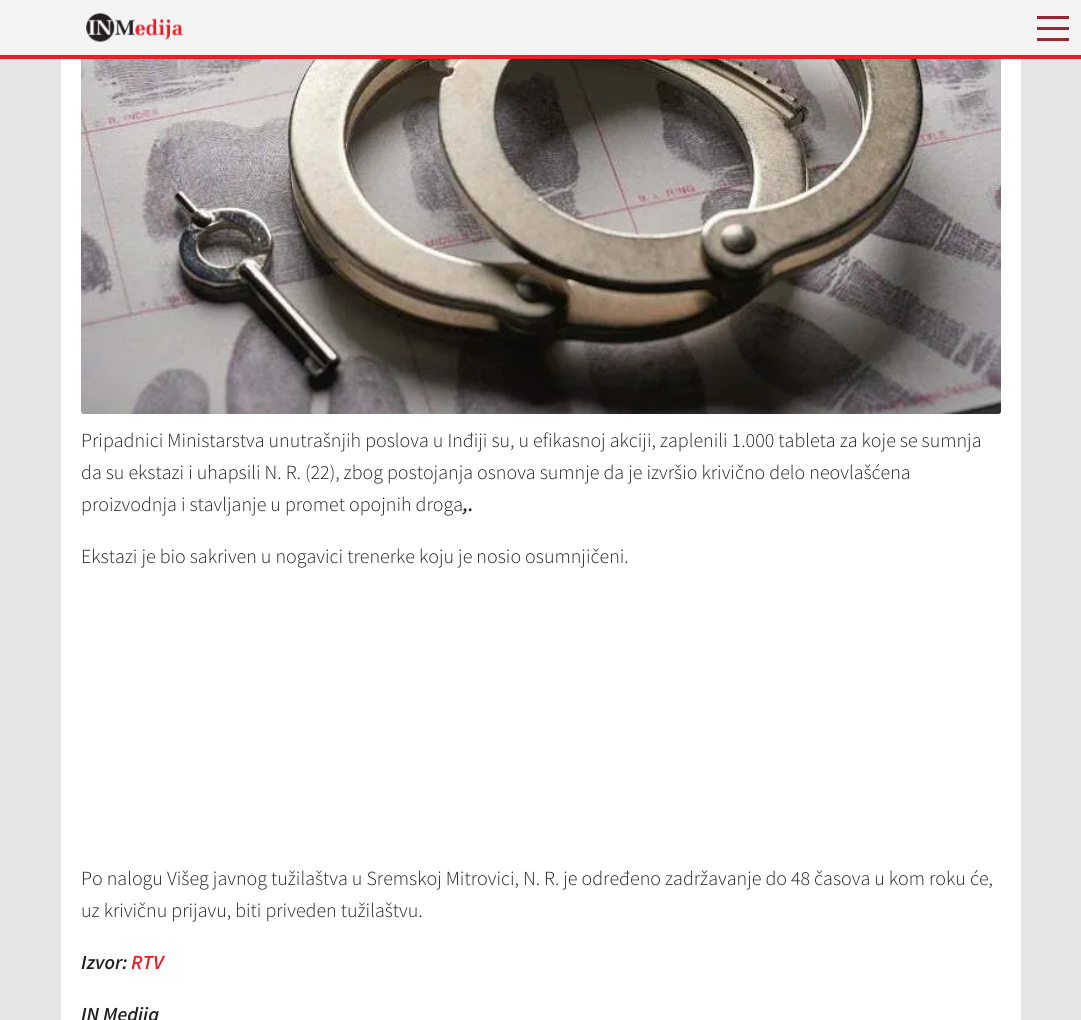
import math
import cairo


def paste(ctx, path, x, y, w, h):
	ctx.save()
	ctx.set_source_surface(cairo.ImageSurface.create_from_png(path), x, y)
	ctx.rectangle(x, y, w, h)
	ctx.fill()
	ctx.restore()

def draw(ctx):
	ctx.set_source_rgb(0.906, 0.898, 0.91)
	ctx.paint()
	ctx.set_source_rgb(0.957, 0.957, 0.957)
	ctx.rectangle(0, 0, 1081, 55)
	ctx.fill()
	ctx.set_source_rgb(0.929, 0.114, 0.149)
	ctx.rectangle(0, 55, 1081, 4)
	ctx.fill()
	paste(ctx, 'media/1.png', 86, 13, 97, 29)
	ctx.set_source_rgb(0.592, 0.153, 0.196)
	ctx.rectangle(1037, 38, 32, 3)
	ctx.rectangle(1037, 27, 32, 3)
	ctx.rectangle(1037, 16, 32, 3)
	ctx.fill()
	ctx.set_source_rgb(1, 1, 1)
	ctx.rectangle(61, 59, 960, 961)
	ctx.fill()
	paste(ctx, 'media/2.png', 81, 59, 920, 355)
	ctx.select_font_face('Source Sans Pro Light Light')
	ctx.set_font_size(20)
	ctx.set_source_rgb(0.133, 0.133, 0.133)
	for x, y, s in [
		(81, 447, 'Pripadnici Ministarstva unutrašnjih poslova u Inđiji su, u efikasnoj akciji, zaplenili 1.000 tableta za koje se sumnja'),
		(81, 479, 'da su ekstazi i uhapsili N. R. (22), zbog postojanja osnova sumnje da je izvršio krivično delo neovlašćena'),
		(81, 511, 'proizvodnja i stavljanje u promet opojnih droga'),
	]:
		ctx.move_to(x, y)
		ctx.show_text(s)
	ctx.select_font_face('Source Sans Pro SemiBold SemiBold', cairo.FONT_SLANT_ITALIC)
	ctx.move_to(463, 511)
	ctx.show_text(',.')
	ctx.select_font_face('Source Sans Pro Light Light')
	for x, y, s in [
		(81, 563, 'Ekstazi je bio sakriven u nogavici trenerke koju je nosio osumnjičeni.'),
		(81, 885, 'Po nalogu Višeg javnog tužilaštva u Sremskoj Mitrovici, N. R. je određeno zadržavanje do 48 časova u kom roku će,'),
		(81, 917, 'uz krivičnu prijavu, biti priveden tužilaštvu.'),
	]:
		ctx.move_to(x, y)
		ctx.show_text(s)
	ctx.select_font_face('Source Sans Pro SemiBold SemiBold', cairo.FONT_SLANT_ITALIC)
	ctx.move_to(81, 969)
	ctx.show_text('Izvor:')
	ctx.set_source_rgb(0.929, 0.114, 0.149)
	ctx.move_to(131, 969)
	ctx.show_text('RTV')
	ctx.set_source_rgb(0.133, 0.133, 0.133)
	ctx.move_to(81, 1021)
	ctx.show_text('IN Medija')


surface = cairo.ImageSurface(cairo.FORMAT_RGB24, 1081, 1020)
ctx = cairo.Context(surface)
options = cairo.FontOptions()
options.set_hint_metrics(cairo.HINT_METRICS_OFF)
options.set_hint_style(cairo.HINT_STYLE_NONE)
ctx.set_font_options(options)
ctx.set_miter_limit(4)
draw(ctx)
surface.write_to_png('image.png')
